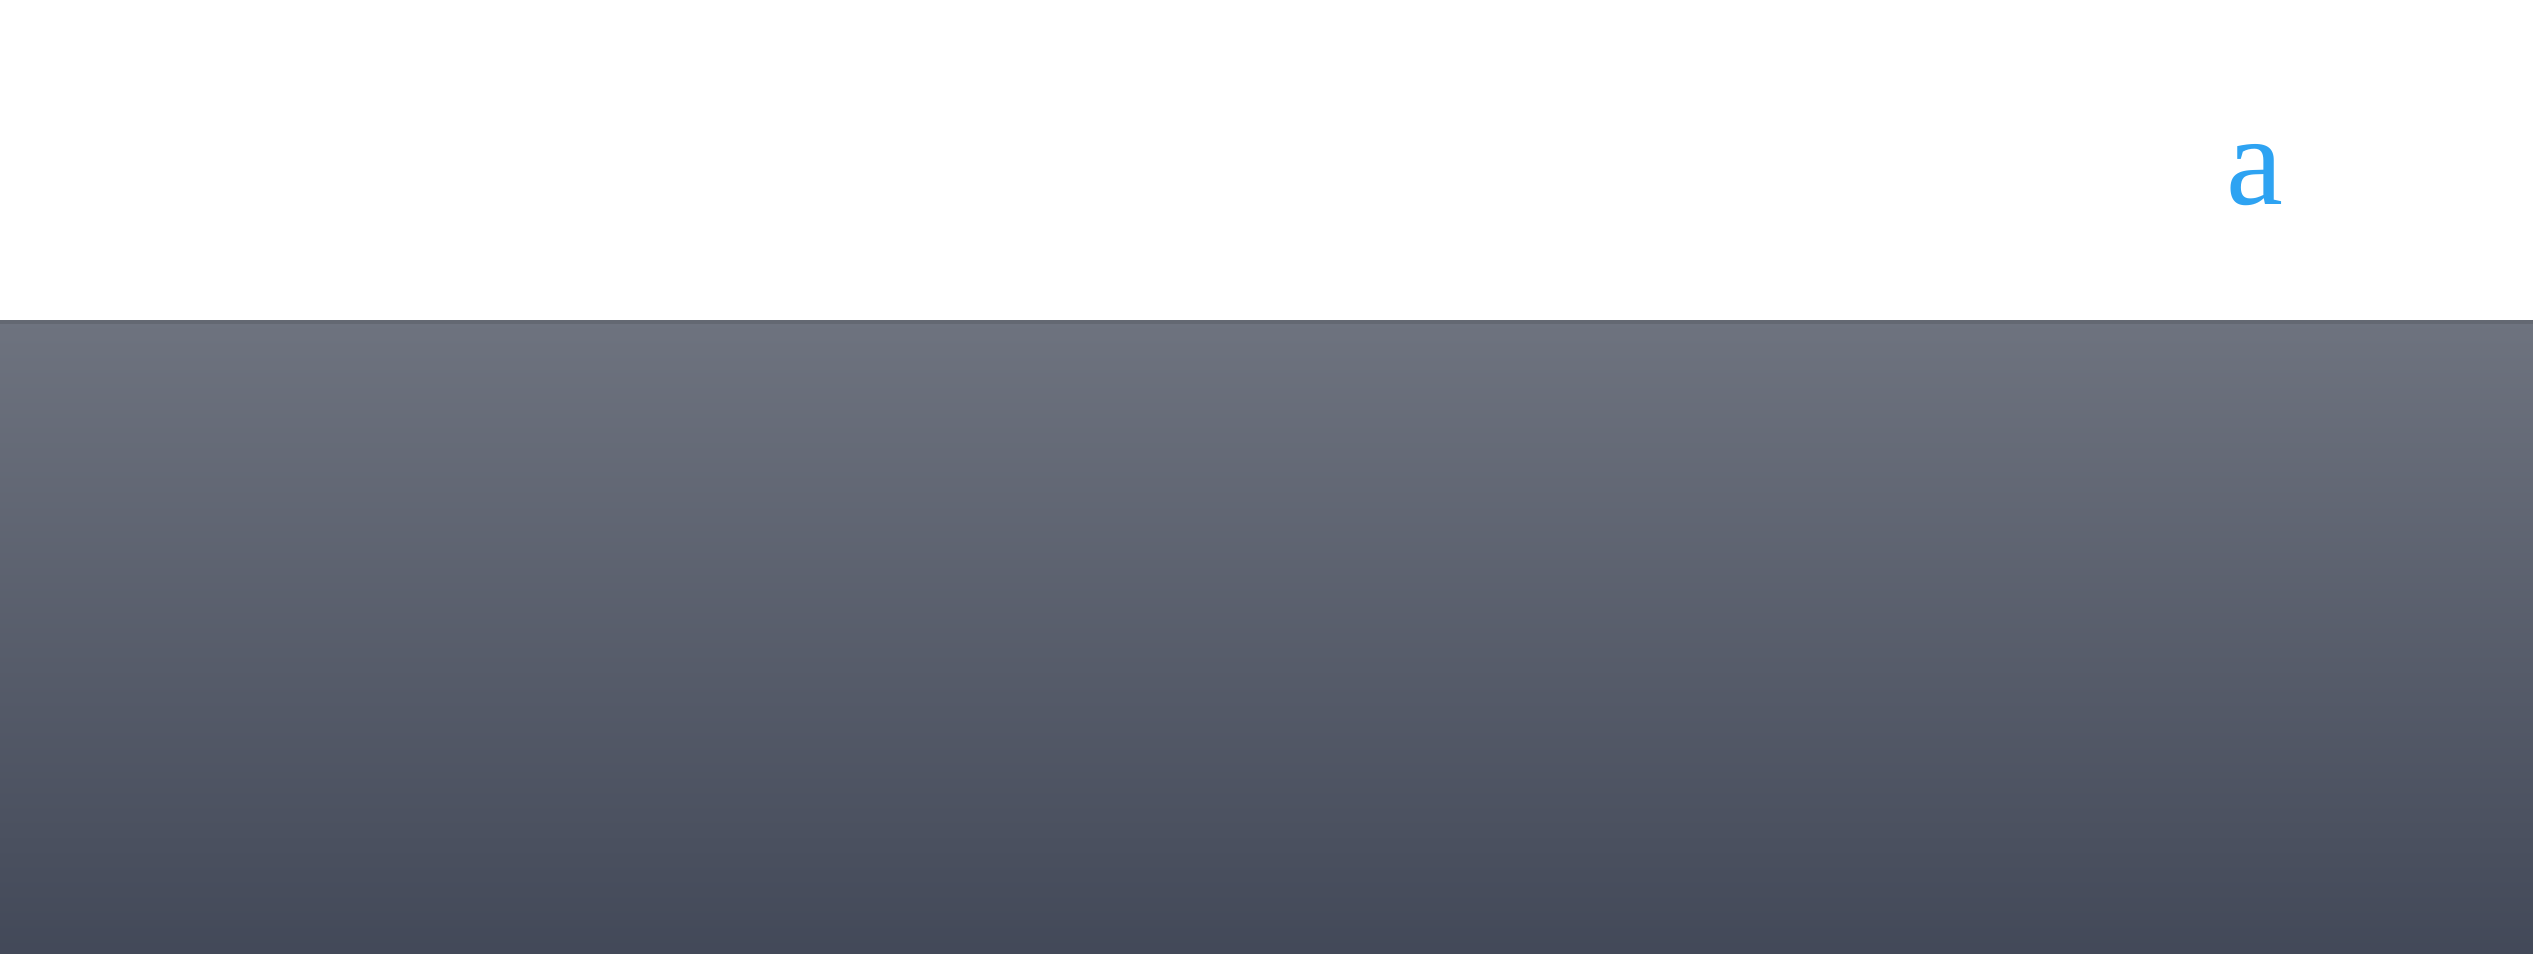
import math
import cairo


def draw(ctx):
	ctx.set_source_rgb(1, 1, 1)
	ctx.paint()
	ctx.set_source_rgb(0.388, 0.408, 0.447)
	ctx.rectangle(0, 320, 2533, 4)
	ctx.fill()
	ctx.select_font_face('Liberation Serif')
	ctx.set_font_size(128)
	ctx.set_source_rgb(0.18, 0.639, 0.949)
	ctx.move_to(2226, 204)
	ctx.show_text('a')
	gradient = cairo.LinearGradient(1268, 320, 1268, 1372)
	gradient.add_color_stop_rgba(0, 0.431, 0.451, 0.498, 1)
	gradient.add_color_stop_rgba(1, 0.149, 0.176, 0.247, 1)
	ctx.set_source(gradient)
	ctx.rectangle(0, 324, 2533, 630)
	ctx.fill()


surface = cairo.ImageSurface(cairo.FORMAT_RGB24, 2533, 954)
ctx = cairo.Context(surface)
options = cairo.FontOptions()
options.set_hint_metrics(cairo.HINT_METRICS_OFF)
options.set_hint_style(cairo.HINT_STYLE_NONE)
ctx.set_font_options(options)
ctx.set_miter_limit(4)
draw(ctx)
surface.write_to_png('image.png')
